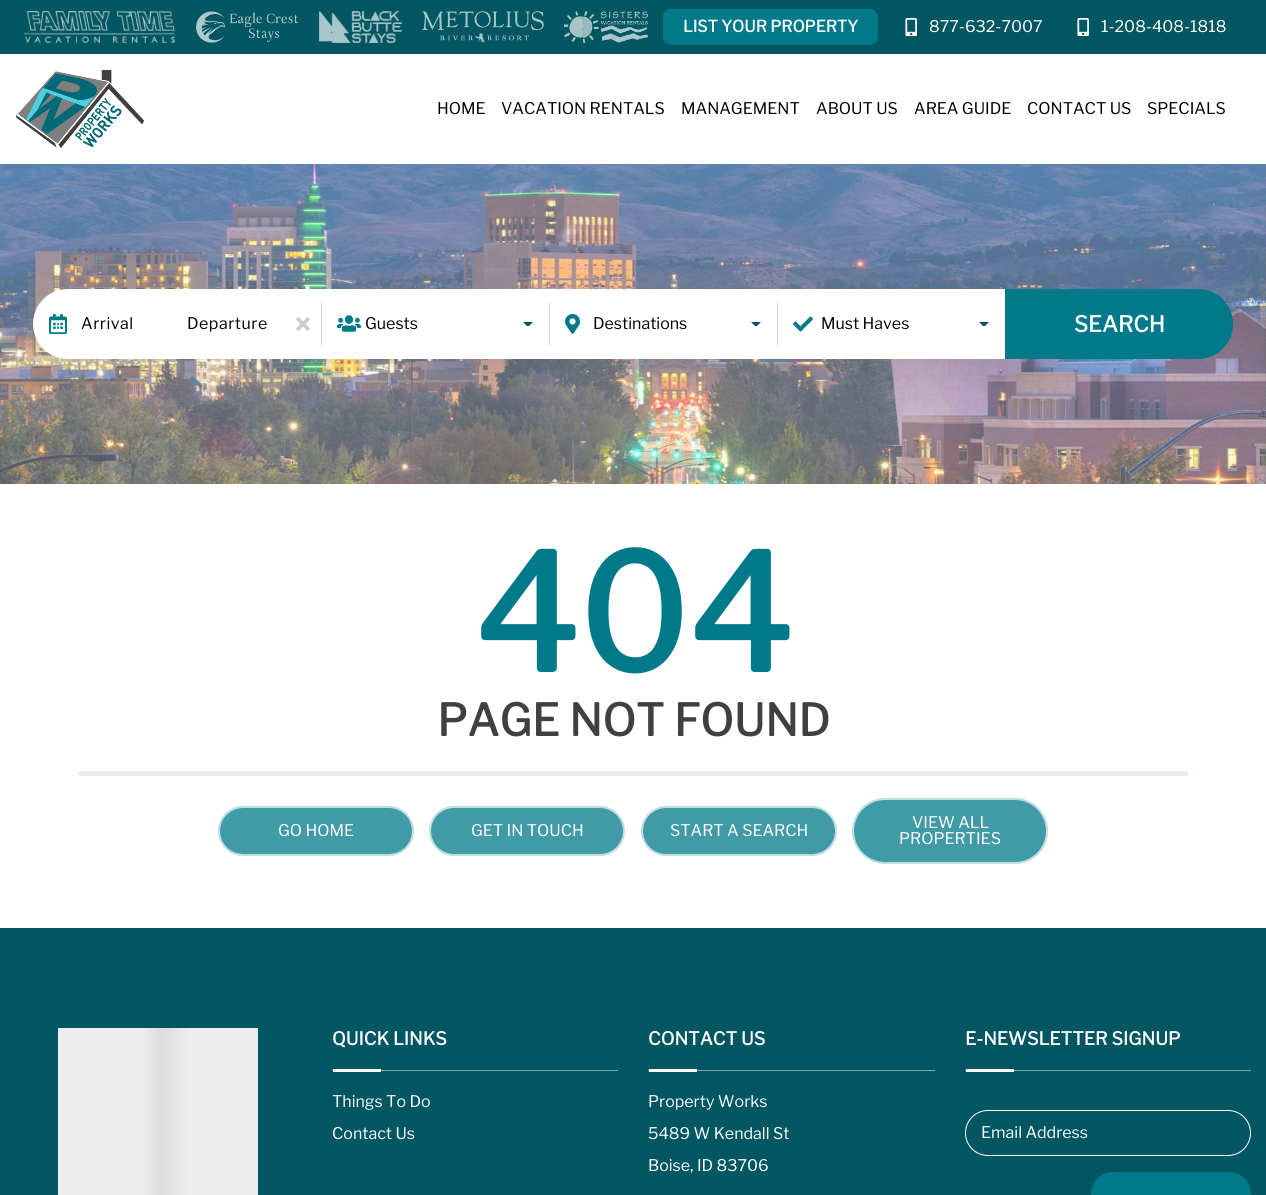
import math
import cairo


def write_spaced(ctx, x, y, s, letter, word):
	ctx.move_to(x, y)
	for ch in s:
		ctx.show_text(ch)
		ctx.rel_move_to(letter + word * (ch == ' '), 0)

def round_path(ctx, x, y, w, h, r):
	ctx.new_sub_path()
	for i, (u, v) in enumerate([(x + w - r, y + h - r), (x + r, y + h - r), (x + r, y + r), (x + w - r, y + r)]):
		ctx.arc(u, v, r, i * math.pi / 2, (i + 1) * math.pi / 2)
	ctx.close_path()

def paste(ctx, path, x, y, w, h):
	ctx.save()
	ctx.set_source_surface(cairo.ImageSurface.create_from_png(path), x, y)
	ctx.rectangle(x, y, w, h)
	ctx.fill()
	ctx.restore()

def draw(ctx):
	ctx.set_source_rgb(1, 1, 1)
	ctx.paint()
	ctx.set_source_rgb(0, 0.337, 0.38)
	ctx.rectangle(0, 0, 1266, 54)
	ctx.fill()
	paste(ctx, 'media/1.png', 24, 11, 151, 32)
	paste(ctx, 'media/2.png', 196, 11, 103, 32)
	paste(ctx, 'media/3.png', 319, 11, 83, 32)
	paste(ctx, 'media/4.png', 422, 11, 122, 32)
	paste(ctx, 'media/5.png', 564, 11, 84, 32)
	ctx.set_source_rgb(0, 0.478, 0.541)
	round_path(ctx, 663, 9, 215, 36, 8)
	ctx.fill()
	ctx.select_font_face('Libre Franklin', cairo.FONT_SLANT_NORMAL, cairo.FONT_WEIGHT_BOLD)
	ctx.set_font_size(16)
	ctx.set_source_rgb(1, 1, 1)
	ctx.move_to(683, 32)
	ctx.show_text('LIST YOUR PROPERTY')
	paste(ctx, 'media/6.png', 905, 18, 12, 18)
	ctx.select_font_face('Libre Franklin Thin')
	ctx.move_to(929, 32)
	ctx.show_text('877-632-7007')
	paste(ctx, 'media/6.png', 1077, 18, 12, 18)
	ctx.move_to(1101, 32)
	ctx.show_text('1-208-408-1818')
	paste(ctx, 'media/7.png', 16, 70, 128, 78)
	ctx.set_source_rgb(0, 0, 0)
	for x, y, s in [
		(437, 114, 'HOME'),
		(501, 114, 'VACATION RENTALS'),
		(681, 114, 'MANAGEMENT'),
		(816, 114, 'ABOUT US'),
		(914, 114, 'AREA GUIDE'),
		(1027, 114, 'CONTACT US'),
		(1147, 114, 'SPECIALS'),
	]:
		ctx.move_to(x, y)
		ctx.show_text(s)
	paste(ctx, 'media/8.png', 0, 164, 1266, 320)
	ctx.set_source_rgb(1, 1, 1)
	ctx.new_path()
	ctx.move_to(68, 289)
	ctx.line_to(321, 289)
	ctx.line_to(321, 359)
	ctx.line_to(68, 359)
	ctx.curve_to(48.5, 359, 33, 343.5, 33, 324)
	ctx.curve_to(33, 304.5, 48.5, 289, 68, 289)
	ctx.close_path()
	ctx.fill()
	paste(ctx, 'media/9.png', 49, 314, 18, 20)
	ctx.set_source_rgb(0, 0, 0)
	write_spaced(ctx, 81, 329, 'Arrival', 0.5, 0)
	write_spaced(ctx, 187, 329, 'Departure', 0.5, 0)
	paste(ctx, 'media/10.png', 296, 317, 14, 14)
	ctx.set_source_rgb(1, 1, 1)
	ctx.rectangle(321, 289, 684, 70)
	ctx.fill()
	ctx.set_source_rgb(0.843, 0.843, 0.843)
	ctx.rectangle(321, 303, 1, 42)
	ctx.fill()
	paste(ctx, 'media/11.png', 337, 315, 24, 17)
	ctx.set_source_rgb(0, 0, 0)
	ctx.move_to(365, 329)
	ctx.show_text('Guests')
	ctx.set_source_rgb(0, 0.337, 0.38)
	ctx.new_path()
	ctx.move_to(523, 322)
	ctx.line_to(533, 322)
	ctx.line_to(529, 326)
	ctx.line_to(527, 326)
	ctx.close_path()
	ctx.fill()
	ctx.set_source_rgb(0.843, 0.843, 0.843)
	ctx.rectangle(549, 303, 1, 42)
	ctx.fill()
	paste(ctx, 'media/12.png', 565, 314, 15, 20)
	ctx.set_source_rgb(0, 0, 0)
	ctx.move_to(593, 329)
	ctx.show_text('Destinations')
	ctx.set_source_rgb(0, 0.337, 0.38)
	ctx.new_path()
	ctx.move_to(751, 322)
	ctx.line_to(761, 322)
	ctx.line_to(757, 326)
	ctx.line_to(755, 326)
	ctx.close_path()
	ctx.fill()
	ctx.set_source_rgb(0.843, 0.843, 0.843)
	ctx.rectangle(777, 303, 1, 42)
	ctx.fill()
	paste(ctx, 'media/13.png', 793, 316, 20, 16)
	ctx.set_source_rgb(0, 0, 0)
	ctx.move_to(821, 329)
	ctx.show_text('Must Haves')
	ctx.set_source_rgb(0, 0.337, 0.38)
	ctx.new_path()
	ctx.move_to(979, 322)
	ctx.line_to(989, 322)
	ctx.line_to(985, 326)
	ctx.line_to(983, 326)
	ctx.close_path()
	ctx.fill()
	ctx.set_source_rgb(0, 0.478, 0.541)
	ctx.new_path()
	ctx.move_to(1005, 289)
	ctx.line_to(1198, 289)
	ctx.curve_to(1217.5, 289, 1233, 304.5, 1233, 324)
	ctx.curve_to(1233, 343.5, 1217.5, 359, 1198, 359)
	ctx.line_to(1005, 359)
	ctx.close_path()
	ctx.fill()
	ctx.select_font_face('Libre Franklin', cairo.FONT_SLANT_NORMAL, cairo.FONT_WEIGHT_BOLD)
	ctx.set_font_size(22)
	ctx.set_source_rgb(1, 1, 1)
	ctx.move_to(1074, 332)
	ctx.show_text('SEARCH')
	ctx.set_font_size(160)
	ctx.set_source_rgb(0, 0.478, 0.541)
	ctx.move_to(474, 672)
	ctx.show_text('404')
	ctx.set_font_size(44)
	ctx.set_source_rgb(0.251, 0.251, 0.251)
	ctx.move_to(437, 736)
	ctx.show_text('PAGE NOT FOUND')
	ctx.set_source_rgb(0.902, 0.933, 0.937)
	round_path(ctx, 78, 771, 1110, 5, 2.5)
	ctx.fill()
	round_path(ctx, 219, 807, 194, 48, 24)
	ctx.set_source_rgb(0.749, 0.871, 0.886)
	ctx.stroke()
	ctx.set_source_rgba(0, 0.478, 0.541, 0.75)
	round_path(ctx, 220, 808, 192, 46, 23)
	ctx.fill()
	ctx.select_font_face('Libre Franklin Thin')
	ctx.set_font_size(16)
	ctx.set_source_rgb(1, 1, 1)
	ctx.move_to(278, 836)
	ctx.show_text('GO HOME')
	round_path(ctx, 430, 807, 194, 48, 24)
	ctx.set_source_rgb(0.749, 0.871, 0.886)
	ctx.stroke()
	ctx.set_source_rgba(0, 0.478, 0.541, 0.75)
	round_path(ctx, 431, 808, 192, 46, 23)
	ctx.fill()
	ctx.set_source_rgb(1, 1, 1)
	ctx.move_to(471, 836)
	ctx.show_text('GET IN TOUCH')
	round_path(ctx, 642, 807, 194, 48, 24)
	ctx.set_source_rgb(0.749, 0.871, 0.886)
	ctx.stroke()
	ctx.set_source_rgba(0, 0.478, 0.541, 0.75)
	round_path(ctx, 643, 808, 192, 46, 23)
	ctx.fill()
	ctx.set_source_rgb(1, 1, 1)
	ctx.move_to(670, 836)
	ctx.show_text('START A SEARCH')
	round_path(ctx, 853, 799, 194, 64, 32)
	ctx.set_source_rgb(0.749, 0.871, 0.886)
	ctx.stroke()
	ctx.set_source_rgba(0, 0.478, 0.541, 0.75)
	round_path(ctx, 854, 800, 192, 62, 31)
	ctx.fill()
	ctx.set_source_rgb(1, 1, 1)
	ctx.move_to(912, 828)
	ctx.show_text('VIEW ALL')
	ctx.move_to(899, 844)
	ctx.show_text('PROPERTIES')
	ctx.set_source_rgb(0, 0.337, 0.38)
	ctx.rectangle(0, 928, 1266, 267)
	ctx.fill()
	gradient = cairo.LinearGradient(-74, 1128, 126, 1128)
	gradient.add_color_stop_rgba(0.08, 0.933, 0.933, 0.933, 1)
	gradient.add_color_stop_rgba(0.18, 0.867, 0.867, 0.867, 1)
	gradient.add_color_stop_rgba(0.33, 0.933, 0.933, 0.933, 1)
	ctx.set_source(gradient)
	ctx.rectangle(58, 1028, 68, 167)
	ctx.fill()
	gradient = cairo.LinearGradient(126, 1128, 326, 1128)
	gradient.add_color_stop_rgba(0.08, 0.933, 0.933, 0.933, 1)
	gradient.add_color_stop_rgba(0.18, 0.867, 0.867, 0.867, 1)
	gradient.add_color_stop_rgba(0.33, 0.933, 0.933, 0.933, 1)
	ctx.set_source(gradient)
	ctx.rectangle(126, 1028, 132, 167)
	ctx.fill()
	ctx.set_source_rgb(0.502, 0.671, 0.69)
	ctx.rectangle(332, 1070, 286, 1)
	ctx.fill()
	ctx.select_font_face('Libre Franklin', cairo.FONT_SLANT_NORMAL, cairo.FONT_WEIGHT_BOLD)
	ctx.set_font_size(18)
	ctx.set_source_rgb(1, 1, 1)
	ctx.move_to(332, 1045)
	ctx.show_text('QUICK LINKS')
	ctx.rectangle(333, 1069, 48, 3)
	ctx.fill()
	ctx.select_font_face('Libre Franklin Thin')
	ctx.set_font_size(16)
	ctx.move_to(332, 1107)
	ctx.show_text('Things To Do')
	ctx.move_to(332, 1139)
	ctx.show_text('Contact Us')
	ctx.set_source_rgb(0.502, 0.671, 0.69)
	ctx.rectangle(648, 1070, 287, 1)
	ctx.fill()
	ctx.select_font_face('Libre Franklin', cairo.FONT_SLANT_NORMAL, cairo.FONT_WEIGHT_BOLD)
	ctx.set_font_size(18)
	ctx.set_source_rgb(1, 1, 1)
	ctx.move_to(648, 1045)
	ctx.show_text('CONTACT US')
	ctx.rectangle(649, 1069, 48, 3)
	ctx.fill()
	ctx.select_font_face('Libre Franklin Thin')
	ctx.set_font_size(16)
	for x, y, s in [
		(648, 1107, 'Property Works'),
		(648, 1139, '5489 W Kendall St'),
		(648, 1171, 'Boise, ID 83706'),
	]:
		ctx.move_to(x, y)
		ctx.show_text(s)
	ctx.set_source_rgb(0.502, 0.671, 0.69)
	ctx.rectangle(965, 1070, 286, 1)
	ctx.fill()
	ctx.select_font_face('Libre Franklin', cairo.FONT_SLANT_NORMAL, cairo.FONT_WEIGHT_BOLD)
	ctx.set_font_size(18)
	ctx.set_source_rgb(1, 1, 1)
	ctx.move_to(965, 1045)
	ctx.show_text('E-NEWSLETTER SIGNUP')
	ctx.rectangle(966, 1069, 48, 3)
	ctx.fill()
	round_path(ctx, 965.5, 1110.5, 285, 45, 22.5)
	ctx.set_line_width(1)
	ctx.stroke()
	ctx.select_font_face('Libre Franklin Thin')
	ctx.set_font_size(16)
	ctx.move_to(981, 1138)
	ctx.show_text('Email Address')
	ctx.set_source_rgb(0, 0.478, 0.541)
	round_path(ctx, 1091, 1172, 160, 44, 22)
	ctx.fill()


surface = cairo.ImageSurface(cairo.FORMAT_RGB24, 1266, 1195)
ctx = cairo.Context(surface)
options = cairo.FontOptions()
options.set_hint_metrics(cairo.HINT_METRICS_OFF)
options.set_hint_style(cairo.HINT_STYLE_NONE)
ctx.set_font_options(options)
ctx.set_miter_limit(4)
draw(ctx)
surface.write_to_png('image.png')
